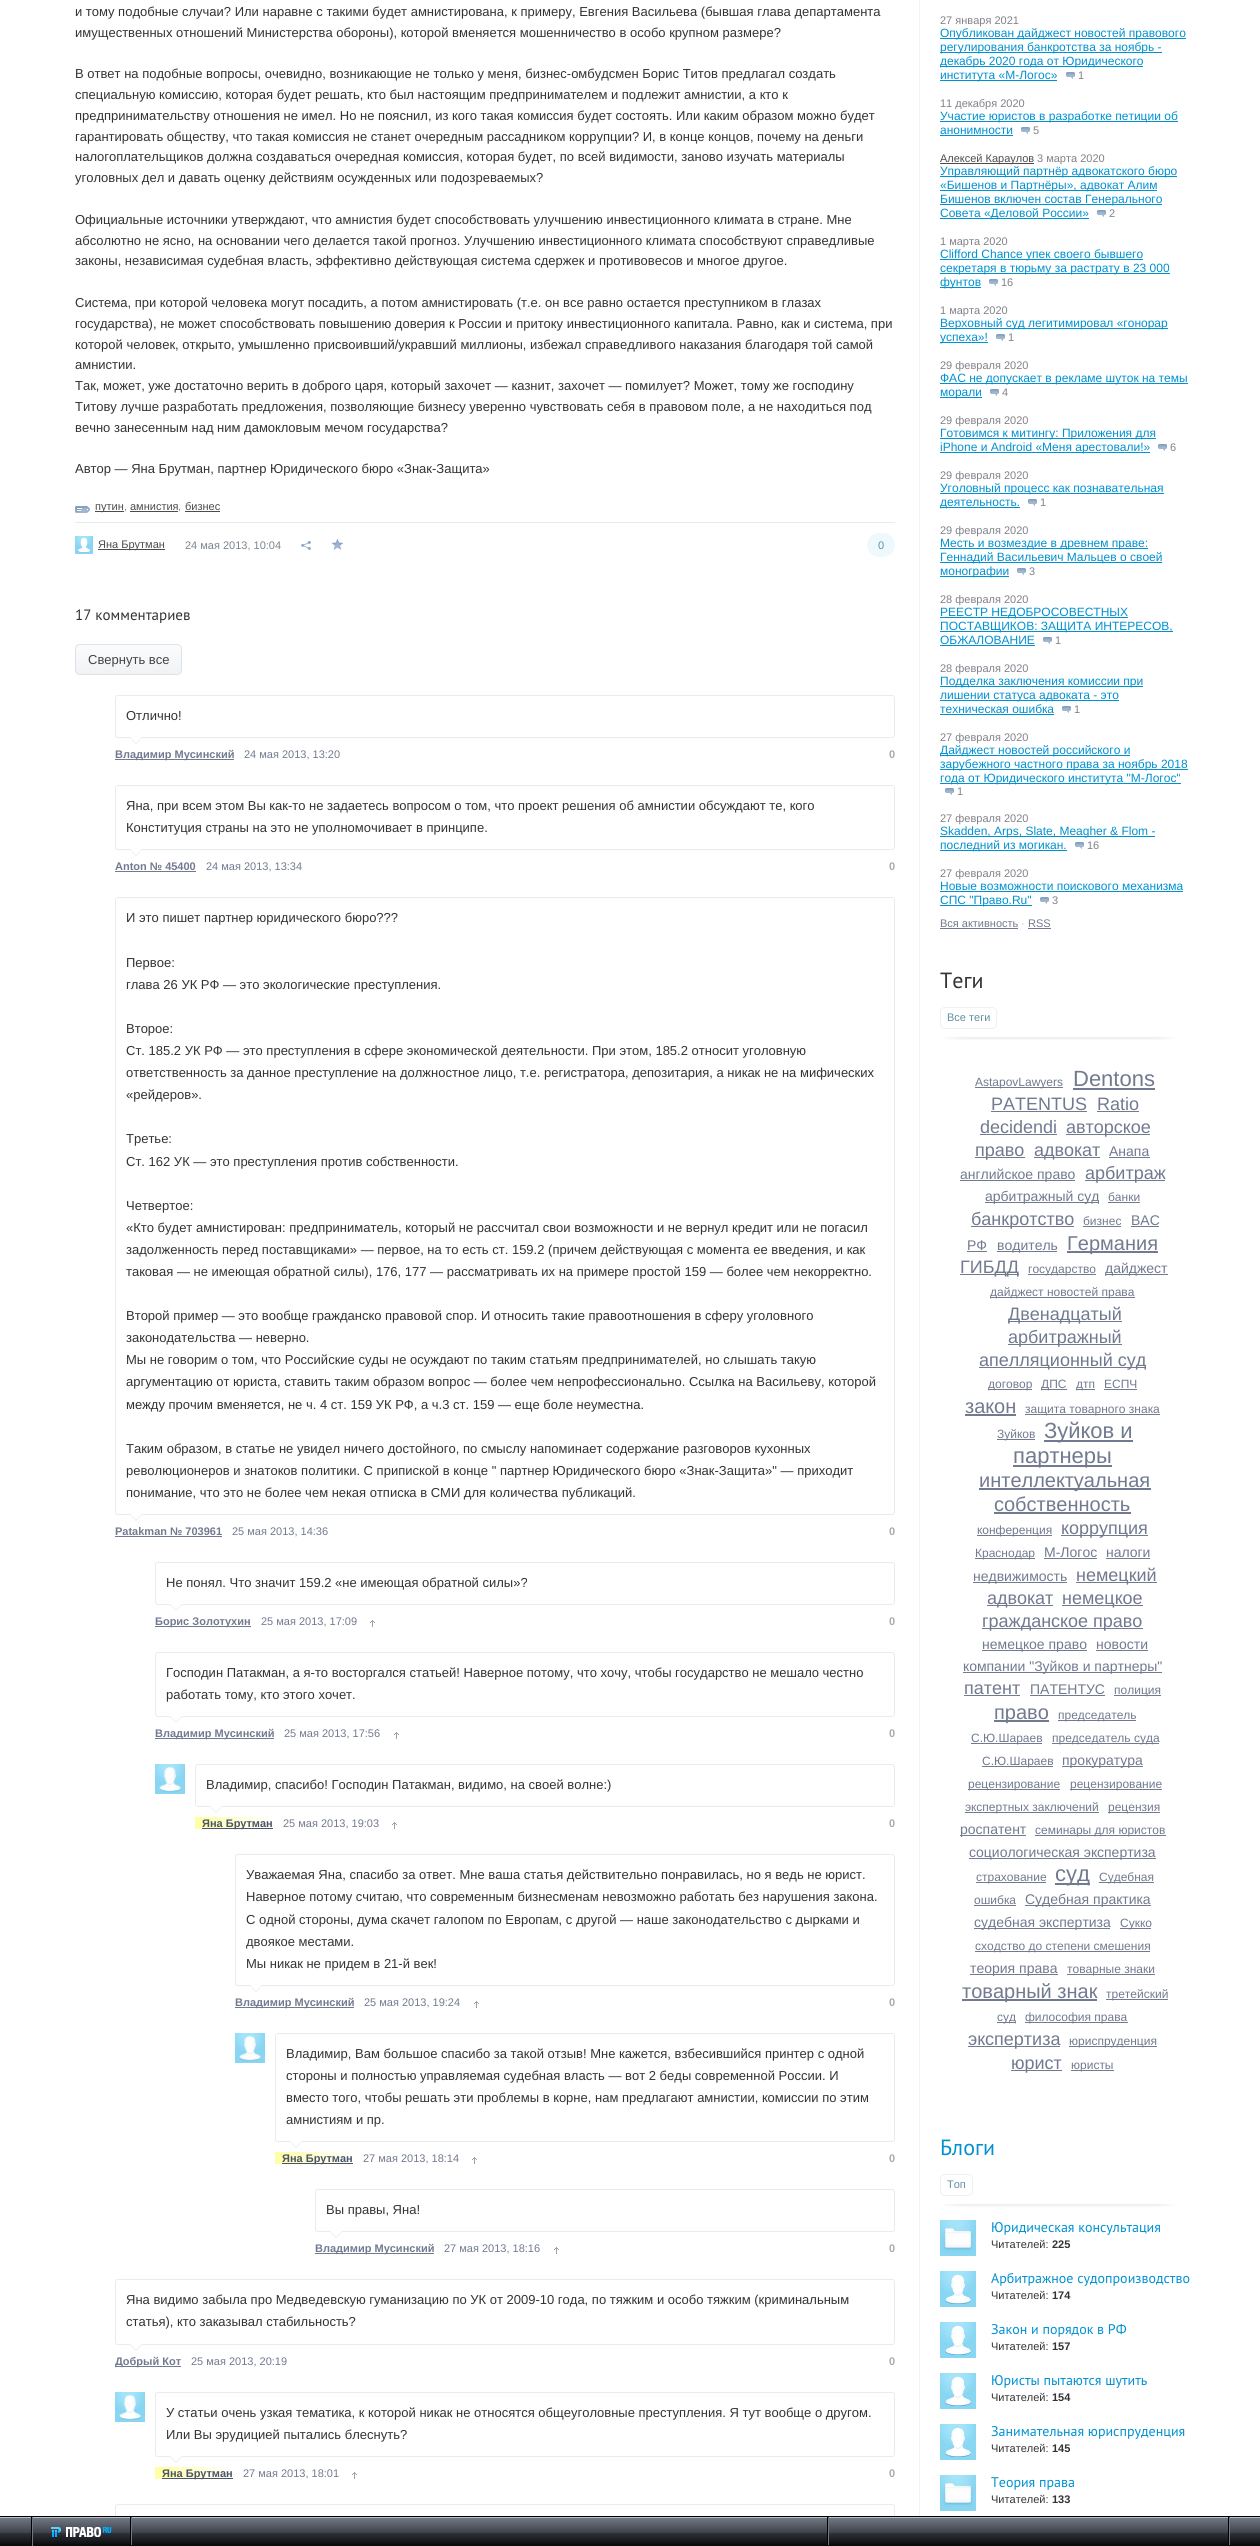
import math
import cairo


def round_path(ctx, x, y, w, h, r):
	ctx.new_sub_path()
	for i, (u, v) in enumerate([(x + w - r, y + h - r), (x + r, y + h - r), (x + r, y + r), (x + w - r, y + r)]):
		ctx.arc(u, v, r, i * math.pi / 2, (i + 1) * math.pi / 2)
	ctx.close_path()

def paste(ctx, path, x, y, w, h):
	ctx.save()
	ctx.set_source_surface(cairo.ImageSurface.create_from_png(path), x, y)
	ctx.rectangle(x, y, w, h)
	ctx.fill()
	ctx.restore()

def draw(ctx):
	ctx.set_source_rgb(1, 1, 1)
	ctx.paint()
	ctx.select_font_face('Liberation Sans')
	ctx.set_font_size(13)
	ctx.set_source_rgb(0.2, 0.2, 0.2)
	for x, y, s in [
		(75, 16, 'и тому подобные случаи? Или наравне с такими будет амнистирована, к примеру, Евгения Васильева (бывшая глава департамента'),
		(75, 37, 'имущественных отношений Министерства обороны), которой вменяется мошенничество в особо крупном размере?'),
		(75, 78, 'В ответ на подобные вопросы, очевидно, возникающие не только у меня, бизнес-омбудсмен Борис Титов предлагал создать'),
		(75, 99, 'специальную комиссию, которая будет решать, кто был настоящим предпринимателем и подлежит амнистии, а кто к'),
		(75, 120, 'предпринимательству отношения не имел. Но не пояснил, из кого такая комиссия будет состоять. Или каким образом можно будет'),
		(75, 141, 'гарантировать обществу, что такая комиссия не станет очередным рассадником коррупции? И, в конце концов, почему на деньги'),
		(75, 161, 'налогоплательщиков должна создаваться очередная комиссия, которая будет, по всей видимости, заново изучать материалы'),
		(75, 182, 'уголовных дел и давать оценку действиям осужденных или подозреваемых?'),
		(75, 224, 'Официальные источники утверждают, что амнистия будет способствовать улучшению инвестиционного климата в стране. Мне'),
		(75, 245, 'абсолютно не ясно, на основании чего делается такой прогноз. Улучшению инвестиционного климата способствуют справедливые'),
		(75, 265, 'законы, независимая судебная власть, эффективно действующая система сдержек и противовесов и многое другое.'),
		(75, 307, 'Система, при которой человека могут посадить, а потом амнистировать (т.е. он все равно остается преступником в глазах'),
		(75, 328, 'государства), не может способствовать повышению доверия к России и притоку инвестиционного капитала. Равно, как и система, при'),
		(75, 349, 'которой человек, открыто, умышленно присвоивший/укравший миллионы, избежал справедливого наказания благодаря той самой'),
		(75, 369, 'амнистии.'),
		(75, 390, 'Так, может, уже достаточно верить в доброго царя, который захочет — казнит, захочет — помилует? Может, тому же господину'),
		(75, 411, 'Титову лучше разработать предложения, позволяющие бизнесу уверенно чувствовать себя в правовом поле, а не находиться под'),
		(75, 432, 'вечно занесенным над ним дамокловым мечом государства?'),
		(75, 473, 'Автор — Яна Брутман, партнер Юридического бюро «Знак-Защита»'),
	]:
		ctx.move_to(x, y)
		ctx.show_text(s)
	paste(ctx, 'media/1.png', 75, 506, 15, 7)
	ctx.set_source_rgb(0.298, 0.298, 0.298)
	ctx.rectangle(95, 511, 29, 1)
	ctx.fill()
	ctx.set_font_size(11)
	ctx.move_to(95, 510)
	ctx.show_text('путин')
	ctx.set_source_rgb(0.533, 0.533, 0.533)
	ctx.move_to(124, 510)
	ctx.show_text(',')
	ctx.set_source_rgb(0.298, 0.298, 0.298)
	ctx.move_to(130, 510)
	ctx.show_text('амнистия')
	ctx.rectangle(130, 511, 48, 1)
	ctx.fill()
	ctx.set_source_rgb(0.533, 0.533, 0.533)
	ctx.move_to(178, 510)
	ctx.show_text(',')
	ctx.set_source_rgb(0.298, 0.298, 0.298)
	ctx.move_to(185, 510)
	ctx.show_text('бизнес')
	ctx.rectangle(185, 511, 35, 1)
	ctx.fill()
	ctx.set_source_rgb(0.906, 0.922, 0.929)
	ctx.rectangle(75, 522, 820, 1)
	ctx.fill()
	paste(ctx, 'media/2.png', 75, 536, 18, 18)
	ctx.set_source_rgb(0.29, 0.29, 0.29)
	ctx.rectangle(98, 549, 67, 1)
	ctx.fill()
	ctx.set_source_rgb(0.298, 0.298, 0.298)
	ctx.move_to(98, 548)
	ctx.show_text('Яна Брутман')
	ctx.set_source_rgb(0.482, 0.518, 0.553)
	ctx.move_to(185, 549)
	ctx.show_text('24 мая 2013, 10:04')
	paste(ctx, 'media/3.png', 301, 541, 10, 9)
	paste(ctx, 'media/4.png', 332, 539, 11, 11)
	ctx.set_source_rgb(0.929, 0.973, 0.992)
	round_path(ctx, 867, 533, 28, 24, 12)
	ctx.fill()
	ctx.set_source_rgb(0.384, 0.561, 0.647)
	ctx.move_to(878, 549)
	ctx.show_text('0')
	ctx.select_font_face('PT Sans')
	ctx.set_font_size(15)
	ctx.set_source_rgb(0.2, 0.2, 0.2)
	ctx.move_to(75, 620)
	ctx.show_text('17 комментариев')
	ctx.save()
	round_path(ctx, 75, 644, 107, 31, 5)
	ctx.clip()
	gradient = cairo.LinearGradient(129, 645, 129, 674)
	gradient.add_color_stop_rgba(0, 0.984, 0.988, 0.988, 1)
	gradient.add_color_stop_rgba(1, 0.941, 0.949, 0.961, 1)
	ctx.set_source(gradient)
	ctx.rectangle(75, 645, 107, 29)
	ctx.fill()
	ctx.restore()
	round_path(ctx, 75.5, 644.5, 106, 30, 4.5)
	ctx.set_source_rgb(0.875, 0.89, 0.91)
	ctx.set_line_width(1)
	ctx.stroke()
	ctx.select_font_face('Liberation Sans')
	ctx.set_font_size(13)
	ctx.set_source_rgb(0.263, 0.263, 0.263)
	ctx.move_to(88, 664)
	ctx.show_text('Свернуть все')
	round_path(ctx, 115.5, 695.5, 779, 42, 2.5)
	ctx.set_source_rgb(0.906, 0.922, 0.929)
	ctx.stroke()
	ctx.set_source_rgb(0.2, 0.2, 0.2)
	ctx.move_to(126, 720)
	ctx.show_text('Отлично!')
	ctx.set_source_rgb(0.906, 0.922, 0.929)
	ctx.new_path()
	ctx.move_to(129, 737)
	ctx.line_to(143, 737)
	ctx.line_to(136, 744)
	ctx.close_path()
	ctx.fill()
	ctx.set_source_rgb(1, 1, 1)
	ctx.new_path()
	ctx.move_to(130, 737)
	ctx.line_to(142, 737)
	ctx.line_to(136, 743)
	ctx.close_path()
	ctx.fill()
	ctx.set_source_rgb(0.447, 0.478, 0.565)
	ctx.rectangle(115, 759, 119, 1)
	ctx.fill()
	ctx.select_font_face('Liberation Sans', cairo.FONT_SLANT_NORMAL, cairo.FONT_WEIGHT_BOLD)
	ctx.set_font_size(11)
	ctx.move_to(115, 758)
	ctx.show_text('Владимир Мусинский')
	ctx.select_font_face('Liberation Sans')
	ctx.move_to(244, 758)
	ctx.show_text('24 мая 2013, 13:20')
	ctx.select_font_face('Liberation Sans', cairo.FONT_SLANT_NORMAL, cairo.FONT_WEIGHT_BOLD)
	ctx.set_source_rgb(0.667, 0.667, 0.667)
	ctx.move_to(889, 758)
	ctx.show_text('0')
	round_path(ctx, 115.5, 785.5, 779, 64, 2.5)
	ctx.set_source_rgb(0.906, 0.922, 0.929)
	ctx.stroke()
	ctx.select_font_face('Liberation Sans')
	ctx.set_font_size(13)
	ctx.set_source_rgb(0.2, 0.2, 0.2)
	ctx.move_to(126, 810)
	ctx.show_text('Яна, при всем этом Вы как-то не задаетесь вопросом о том, что проект решения об амнистии обсуждают те, кого')
	ctx.move_to(126, 832)
	ctx.show_text('Конституция страны на это не уполномочивает в принципе.')
	ctx.set_source_rgb(0.906, 0.922, 0.929)
	ctx.new_path()
	ctx.move_to(129, 849)
	ctx.line_to(143, 849)
	ctx.line_to(136, 856)
	ctx.close_path()
	ctx.fill()
	ctx.set_source_rgb(1, 1, 1)
	ctx.new_path()
	ctx.move_to(130, 849)
	ctx.line_to(142, 849)
	ctx.line_to(136, 855)
	ctx.close_path()
	ctx.fill()
	ctx.select_font_face('Liberation Sans', cairo.FONT_SLANT_NORMAL, cairo.FONT_WEIGHT_BOLD)
	ctx.set_font_size(11)
	ctx.set_source_rgb(0.447, 0.478, 0.565)
	ctx.move_to(115, 870)
	ctx.show_text('Anton № 45400')
	ctx.rectangle(115, 871, 81, 1)
	ctx.fill()
	ctx.select_font_face('Liberation Sans')
	ctx.move_to(206, 870)
	ctx.show_text('24 мая 2013, 13:34')
	ctx.select_font_face('Liberation Sans', cairo.FONT_SLANT_NORMAL, cairo.FONT_WEIGHT_BOLD)
	ctx.set_source_rgb(0.667, 0.667, 0.667)
	ctx.move_to(889, 870)
	ctx.show_text('0')
	round_path(ctx, 115.5, 897.5, 779, 617, 2.5)
	ctx.set_source_rgb(0.906, 0.922, 0.929)
	ctx.stroke()
	ctx.select_font_face('Liberation Sans')
	ctx.set_font_size(13)
	ctx.set_source_rgb(0.2, 0.2, 0.2)
	for x, y, s in [
		(126, 922, 'И это пишет партнер юридического бюро???'),
		(126, 967, 'Первое:'),
		(126, 989, 'глава 26 УК РФ — это экологические преступления.'),
		(126, 1033, 'Второе:'),
		(126, 1055, 'Ст. 185.2 УК РФ — это преступления в сфере экономической деятельности. При этом, 185.2 относит уголовную'),
		(126, 1077, 'ответственность за данное преступление на должностное лицо, т.е. регистратора, депозитария, а никак не на мифических'),
		(126, 1099, '«рейдеров».'),
		(126, 1143, 'Третье:'),
		(126, 1166, 'Ст. 162 УК — это преступления против собственности.'),
		(126, 1210, 'Четвертое:'),
		(126, 1232, '«Кто будет амнистирован: предприниматель, который не рассчитал свои возможности и не вернул кредит или не погасил'),
		(126, 1254, 'задолженность перед поставщиками» — первое, на то есть ст. 159.2 (причем действующая с момента ее введения, и как'),
		(126, 1276, 'таковая — не имеющая обратной силы), 176, 177 — рассматривать их на примере простой 159 — более чем некорректно.'),
		(126, 1320, 'Второй пример — это вообще гражданско правовой спор. И относить такие правоотношения в сферу уголовного'),
		(126, 1342, 'законодательства — неверно.'),
		(126, 1364, 'Мы не говорим о том, что Российские суды не осуждают по таким статьям предпринимателей, но слышать такую'),
		(126, 1386, 'аргументацию от юриста, ставить таким образом вопрос — более чем непрофессионально. Ссылка на Васильеву, которой'),
		(126, 1409, 'между прочим вменяется, не ч. 4 ст. 159 УК РФ, а ч.3 ст. 159 — еще боле неуместна.'),
		(126, 1453, 'Таким образом, в статье не увидел ничего достойного, по смыслу напоминает содержание разговоров кухонных'),
		(126, 1475, 'революционеров и знатоков политики. С припиской в конце " партнер Юридического бюро «Знак-Защита»" — приходит'),
		(126, 1497, 'понимание, что это не более чем некая отписка в СМИ для количества публикаций.'),
	]:
		ctx.move_to(x, y)
		ctx.show_text(s)
	ctx.set_source_rgb(0.906, 0.922, 0.929)
	ctx.new_path()
	ctx.move_to(129, 1514)
	ctx.line_to(143, 1514)
	ctx.line_to(136, 1521)
	ctx.close_path()
	ctx.fill()
	ctx.set_source_rgb(1, 1, 1)
	ctx.new_path()
	ctx.move_to(130, 1514)
	ctx.line_to(142, 1514)
	ctx.line_to(136, 1520)
	ctx.close_path()
	ctx.fill()
	ctx.select_font_face('Liberation Sans', cairo.FONT_SLANT_NORMAL, cairo.FONT_WEIGHT_BOLD)
	ctx.set_font_size(11)
	ctx.set_source_rgb(0.447, 0.478, 0.565)
	ctx.move_to(115, 1535)
	ctx.show_text('Patakman № 703961')
	ctx.rectangle(115, 1536, 107, 1)
	ctx.fill()
	ctx.select_font_face('Liberation Sans')
	ctx.move_to(232, 1535)
	ctx.show_text('25 мая 2013, 14:36')
	ctx.select_font_face('Liberation Sans', cairo.FONT_SLANT_NORMAL, cairo.FONT_WEIGHT_BOLD)
	ctx.set_source_rgb(0.667, 0.667, 0.667)
	ctx.move_to(889, 1535)
	ctx.show_text('0')
	round_path(ctx, 155.5, 1562.5, 739, 42, 2.5)
	ctx.set_source_rgb(0.906, 0.922, 0.929)
	ctx.stroke()
	ctx.select_font_face('Liberation Sans')
	ctx.set_font_size(13)
	ctx.set_source_rgb(0.2, 0.2, 0.2)
	ctx.move_to(166, 1587)
	ctx.show_text('Не понял. Что значит 159.2 «не имеющая обратной силы»?')
	ctx.set_source_rgb(0.906, 0.922, 0.929)
	ctx.new_path()
	ctx.move_to(169, 1604)
	ctx.line_to(183, 1604)
	ctx.line_to(176, 1611)
	ctx.close_path()
	ctx.fill()
	ctx.set_source_rgb(1, 1, 1)
	ctx.new_path()
	ctx.move_to(170, 1604)
	ctx.line_to(182, 1604)
	ctx.line_to(176, 1610)
	ctx.close_path()
	ctx.fill()
	ctx.set_source_rgb(0.447, 0.478, 0.565)
	ctx.rectangle(155, 1626, 96, 1)
	ctx.fill()
	ctx.select_font_face('Liberation Sans', cairo.FONT_SLANT_NORMAL, cairo.FONT_WEIGHT_BOLD)
	ctx.set_font_size(11)
	ctx.move_to(155, 1625)
	ctx.show_text('Борис Золотухин')
	ctx.select_font_face('Liberation Sans')
	ctx.move_to(261, 1625)
	ctx.show_text('25 мая 2013, 17:09')
	paste(ctx, 'media/5.png', 370, 1620, 5, 7)
	ctx.select_font_face('Liberation Sans', cairo.FONT_SLANT_NORMAL, cairo.FONT_WEIGHT_BOLD)
	ctx.set_source_rgb(0.667, 0.667, 0.667)
	ctx.move_to(889, 1625)
	ctx.show_text('0')
	round_path(ctx, 155.5, 1652.5, 739, 64, 2.5)
	ctx.set_source_rgb(0.906, 0.922, 0.929)
	ctx.stroke()
	ctx.select_font_face('Liberation Sans')
	ctx.set_font_size(13)
	ctx.set_source_rgb(0.2, 0.2, 0.2)
	ctx.move_to(166, 1677)
	ctx.show_text('Господин Патакман, а я-то восторгался статьей! Наверное потому, что хочу, чтобы государство не мешало честно')
	ctx.move_to(166, 1699)
	ctx.show_text('работать тому, кто этого хочет.')
	ctx.set_source_rgb(0.906, 0.922, 0.929)
	ctx.new_path()
	ctx.move_to(169, 1716)
	ctx.line_to(183, 1716)
	ctx.line_to(176, 1723)
	ctx.close_path()
	ctx.fill()
	ctx.set_source_rgb(1, 1, 1)
	ctx.new_path()
	ctx.move_to(170, 1716)
	ctx.line_to(182, 1716)
	ctx.line_to(176, 1722)
	ctx.close_path()
	ctx.fill()
	ctx.set_source_rgb(0.447, 0.478, 0.565)
	ctx.rectangle(155, 1738, 119, 1)
	ctx.fill()
	ctx.select_font_face('Liberation Sans', cairo.FONT_SLANT_NORMAL, cairo.FONT_WEIGHT_BOLD)
	ctx.set_font_size(11)
	ctx.move_to(155, 1737)
	ctx.show_text('Владимир Мусинский')
	ctx.select_font_face('Liberation Sans')
	ctx.move_to(284, 1737)
	ctx.show_text('25 мая 2013, 17:56')
	paste(ctx, 'media/5.png', 394, 1732, 5, 7)
	ctx.select_font_face('Liberation Sans', cairo.FONT_SLANT_NORMAL, cairo.FONT_WEIGHT_BOLD)
	ctx.set_source_rgb(0.667, 0.667, 0.667)
	ctx.move_to(889, 1737)
	ctx.show_text('0')
	paste(ctx, 'media/6.png', 155, 1764, 30, 30)
	round_path(ctx, 195.5, 1764.5, 699, 42, 2.5)
	ctx.set_source_rgb(0.906, 0.922, 0.929)
	ctx.stroke()
	ctx.select_font_face('Liberation Sans')
	ctx.set_font_size(13)
	ctx.set_source_rgb(0.2, 0.2, 0.2)
	ctx.move_to(206, 1789)
	ctx.show_text('Владимир, спасибо! Господин Патакман, видимо, на своей волне:)')
	ctx.set_source_rgb(0.906, 0.922, 0.929)
	ctx.new_path()
	ctx.move_to(209, 1806)
	ctx.line_to(223, 1806)
	ctx.line_to(216, 1813)
	ctx.close_path()
	ctx.fill()
	ctx.set_source_rgb(1, 1, 1)
	ctx.new_path()
	ctx.move_to(210, 1806)
	ctx.line_to(222, 1806)
	ctx.line_to(216, 1812)
	ctx.close_path()
	ctx.fill()
	gradient = cairo.LinearGradient(195, 1823, 273, 1823)
	gradient.add_color_stop_rgba(0, 0.996, 1, 0.639, 1)
	gradient.add_color_stop_rgba(1, 1, 1, 1, 1)
	ctx.set_source(gradient)
	ctx.rectangle(195, 1817, 76, 12)
	ctx.fill()
	ctx.set_source_rgb(0.294, 0.329, 0.408)
	ctx.rectangle(202, 1828, 71, 1)
	ctx.fill()
	ctx.select_font_face('Liberation Sans', cairo.FONT_SLANT_NORMAL, cairo.FONT_WEIGHT_BOLD)
	ctx.set_font_size(11)
	ctx.move_to(202, 1827)
	ctx.show_text('Яна Брутман')
	ctx.select_font_face('Liberation Sans')
	ctx.set_source_rgb(0.447, 0.478, 0.565)
	ctx.move_to(283, 1827)
	ctx.show_text('25 мая 2013, 19:03')
	paste(ctx, 'media/5.png', 392, 1822, 5, 7)
	ctx.select_font_face('Liberation Sans', cairo.FONT_SLANT_NORMAL, cairo.FONT_WEIGHT_BOLD)
	ctx.set_source_rgb(0.667, 0.667, 0.667)
	ctx.move_to(889, 1827)
	ctx.show_text('0')
	round_path(ctx, 235.5, 1854.5, 659, 131, 2.5)
	ctx.set_source_rgb(0.906, 0.922, 0.929)
	ctx.stroke()
	ctx.select_font_face('Liberation Sans')
	ctx.set_font_size(13)
	ctx.set_source_rgb(0.2, 0.2, 0.2)
	for x, y, s in [
		(246, 1879, 'Уважаемая Яна, спасибо за ответ. Мне ваша статья действительно понравилась, но я ведь не юрист.'),
		(246, 1901, 'Наверное потому считаю, что современным бизнесменам невозможно работать без нарушения закона.'),
		(246, 1924, 'С одной стороны, дума скачет галопом по Европам, с другой — наше законодательство с дырками и'),
		(246, 1946, 'двоякое местами.'),
		(246, 1968, 'Мы никак не придем в 21-й век!'),
	]:
		ctx.move_to(x, y)
		ctx.show_text(s)
	ctx.set_source_rgb(0.906, 0.922, 0.929)
	ctx.new_path()
	ctx.move_to(249, 1985)
	ctx.line_to(263, 1985)
	ctx.line_to(256, 1992)
	ctx.close_path()
	ctx.fill()
	ctx.set_source_rgb(1, 1, 1)
	ctx.new_path()
	ctx.move_to(250, 1985)
	ctx.line_to(262, 1985)
	ctx.line_to(256, 1991)
	ctx.close_path()
	ctx.fill()
	ctx.set_source_rgb(0.447, 0.478, 0.565)
	ctx.rectangle(235, 2007, 119, 1)
	ctx.fill()
	ctx.select_font_face('Liberation Sans', cairo.FONT_SLANT_NORMAL, cairo.FONT_WEIGHT_BOLD)
	ctx.set_font_size(11)
	ctx.move_to(235, 2006)
	ctx.show_text('Владимир Мусинский')
	ctx.select_font_face('Liberation Sans')
	ctx.move_to(364, 2006)
	ctx.show_text('25 мая 2013, 19:24')
	paste(ctx, 'media/5.png', 474, 2001, 5, 7)
	ctx.select_font_face('Liberation Sans', cairo.FONT_SLANT_NORMAL, cairo.FONT_WEIGHT_BOLD)
	ctx.set_source_rgb(0.667, 0.667, 0.667)
	ctx.move_to(889, 2006)
	ctx.show_text('0')
	paste(ctx, 'media/7.png', 235, 2033, 30, 30)
	round_path(ctx, 275.5, 2033.5, 619, 108, 2.5)
	ctx.set_source_rgb(0.906, 0.922, 0.929)
	ctx.stroke()
	ctx.select_font_face('Liberation Sans')
	ctx.set_font_size(13)
	ctx.set_source_rgb(0.2, 0.2, 0.2)
	for x, y, s in [
		(286, 2058, 'Владимир, Вам большое спасибо за такой отзыв! Мне кажется, взбесившийся принтер с одной'),
		(286, 2080, 'стороны и полностью управляемая судебная власть — вот 2 беды современной России. И'),
		(286, 2102, 'вместо того, чтобы решать эти проблемы в корне, нам предлагают амнистии, комиссии по этим'),
		(286, 2124, 'амнистиям и пр.'),
	]:
		ctx.move_to(x, y)
		ctx.show_text(s)
	ctx.set_source_rgb(0.906, 0.922, 0.929)
	ctx.new_path()
	ctx.move_to(289, 2141)
	ctx.line_to(303, 2141)
	ctx.line_to(296, 2148)
	ctx.close_path()
	ctx.fill()
	ctx.set_source_rgb(1, 1, 1)
	ctx.new_path()
	ctx.move_to(290, 2141)
	ctx.line_to(302, 2141)
	ctx.line_to(296, 2147)
	ctx.close_path()
	ctx.fill()
	gradient = cairo.LinearGradient(275, 2158, 353, 2158)
	gradient.add_color_stop_rgba(0, 0.996, 1, 0.639, 1)
	gradient.add_color_stop_rgba(1, 1, 1, 1, 1)
	ctx.set_source(gradient)
	ctx.rectangle(275, 2152, 76, 12)
	ctx.fill()
	ctx.set_source_rgb(0.294, 0.329, 0.408)
	ctx.rectangle(282, 2163, 71, 1)
	ctx.fill()
	ctx.select_font_face('Liberation Sans', cairo.FONT_SLANT_NORMAL, cairo.FONT_WEIGHT_BOLD)
	ctx.set_font_size(11)
	ctx.move_to(282, 2162)
	ctx.show_text('Яна Брутман')
	ctx.select_font_face('Liberation Sans')
	ctx.set_source_rgb(0.447, 0.478, 0.565)
	ctx.move_to(363, 2162)
	ctx.show_text('27 мая 2013, 18:14')
	paste(ctx, 'media/5.png', 472, 2157, 5, 7)
	ctx.select_font_face('Liberation Sans', cairo.FONT_SLANT_NORMAL, cairo.FONT_WEIGHT_BOLD)
	ctx.set_source_rgb(0.667, 0.667, 0.667)
	ctx.move_to(889, 2162)
	ctx.show_text('0')
	round_path(ctx, 315.5, 2189.5, 579, 42, 2.5)
	ctx.set_source_rgb(0.906, 0.922, 0.929)
	ctx.stroke()
	ctx.select_font_face('Liberation Sans')
	ctx.set_font_size(13)
	ctx.set_source_rgb(0.2, 0.2, 0.2)
	ctx.move_to(326, 2214)
	ctx.show_text('Вы правы, Яна!')
	ctx.set_source_rgb(0.906, 0.922, 0.929)
	ctx.new_path()
	ctx.move_to(329, 2231)
	ctx.line_to(343, 2231)
	ctx.line_to(336, 2238)
	ctx.close_path()
	ctx.fill()
	ctx.set_source_rgb(1, 1, 1)
	ctx.new_path()
	ctx.move_to(330, 2231)
	ctx.line_to(342, 2231)
	ctx.line_to(336, 2237)
	ctx.close_path()
	ctx.fill()
	ctx.set_source_rgb(0.447, 0.478, 0.565)
	ctx.rectangle(315, 2253, 119, 1)
	ctx.fill()
	ctx.select_font_face('Liberation Sans', cairo.FONT_SLANT_NORMAL, cairo.FONT_WEIGHT_BOLD)
	ctx.set_font_size(11)
	ctx.move_to(315, 2252)
	ctx.show_text('Владимир Мусинский')
	ctx.select_font_face('Liberation Sans')
	ctx.move_to(444, 2252)
	ctx.show_text('27 мая 2013, 18:16')
	paste(ctx, 'media/5.png', 554, 2247, 5, 7)
	ctx.select_font_face('Liberation Sans', cairo.FONT_SLANT_NORMAL, cairo.FONT_WEIGHT_BOLD)
	ctx.set_source_rgb(0.667, 0.667, 0.667)
	ctx.move_to(889, 2252)
	ctx.show_text('0')
	round_path(ctx, 115.5, 2279.5, 779, 65, 2.5)
	ctx.set_source_rgb(0.906, 0.922, 0.929)
	ctx.stroke()
	ctx.select_font_face('Liberation Sans')
	ctx.set_font_size(13)
	ctx.set_source_rgb(0.2, 0.2, 0.2)
	ctx.move_to(126, 2304)
	ctx.show_text('Яна видимо забыла про Медведевскую гуманизацию по УК от 2009-10 года, по тяжким и особо тяжким (криминальным')
	ctx.move_to(126, 2326)
	ctx.show_text('статья), кто заказывал стабильность?')
	ctx.set_source_rgb(0.906, 0.922, 0.929)
	ctx.new_path()
	ctx.move_to(129, 2344)
	ctx.line_to(143, 2344)
	ctx.line_to(136, 2351)
	ctx.close_path()
	ctx.fill()
	ctx.set_source_rgb(1, 1, 1)
	ctx.new_path()
	ctx.move_to(130, 2344)
	ctx.line_to(142, 2344)
	ctx.line_to(136, 2350)
	ctx.close_path()
	ctx.fill()
	ctx.set_source_rgb(0.447, 0.478, 0.565)
	ctx.rectangle(115, 2366, 66, 1)
	ctx.fill()
	ctx.select_font_face('Liberation Sans', cairo.FONT_SLANT_NORMAL, cairo.FONT_WEIGHT_BOLD)
	ctx.set_font_size(11)
	ctx.move_to(115, 2365)
	ctx.show_text('Добрый Кот')
	ctx.select_font_face('Liberation Sans')
	ctx.move_to(191, 2365)
	ctx.show_text('25 мая 2013, 20:19')
	ctx.select_font_face('Liberation Sans', cairo.FONT_SLANT_NORMAL, cairo.FONT_WEIGHT_BOLD)
	ctx.set_source_rgb(0.667, 0.667, 0.667)
	ctx.move_to(889, 2365)
	ctx.show_text('0')
	paste(ctx, 'media/7.png', 115, 2392, 30, 30)
	round_path(ctx, 155.5, 2392.5, 739, 64, 2.5)
	ctx.set_source_rgb(0.906, 0.922, 0.929)
	ctx.stroke()
	ctx.select_font_face('Liberation Sans')
	ctx.set_font_size(13)
	ctx.set_source_rgb(0.2, 0.2, 0.2)
	ctx.move_to(166, 2417)
	ctx.show_text('У статьи очень узкая тематика, к которой никак не относятся общеуголовные преступления. Я тут вообще о другом.')
	ctx.move_to(166, 2439)
	ctx.show_text('Или Вы эрудицией пытались блеснуть?')
	ctx.set_source_rgb(0.906, 0.922, 0.929)
	ctx.new_path()
	ctx.move_to(169, 2456)
	ctx.line_to(183, 2456)
	ctx.line_to(176, 2463)
	ctx.close_path()
	ctx.fill()
	ctx.set_source_rgb(1, 1, 1)
	ctx.new_path()
	ctx.move_to(170, 2456)
	ctx.line_to(182, 2456)
	ctx.line_to(176, 2462)
	ctx.close_path()
	ctx.fill()
	gradient = cairo.LinearGradient(155, 2473, 233, 2473)
	gradient.add_color_stop_rgba(0, 0.996, 1, 0.639, 1)
	gradient.add_color_stop_rgba(1, 1, 1, 1, 1)
	ctx.set_source(gradient)
	ctx.rectangle(155, 2467, 76, 12)
	ctx.fill()
	ctx.set_source_rgb(0.294, 0.329, 0.408)
	ctx.rectangle(162, 2478, 71, 1)
	ctx.fill()
	ctx.select_font_face('Liberation Sans', cairo.FONT_SLANT_NORMAL, cairo.FONT_WEIGHT_BOLD)
	ctx.set_font_size(11)
	ctx.move_to(162, 2477)
	ctx.show_text('Яна Брутман')
	ctx.select_font_face('Liberation Sans')
	ctx.set_source_rgb(0.447, 0.478, 0.565)
	ctx.move_to(243, 2477)
	ctx.show_text('27 мая 2013, 18:01')
	paste(ctx, 'media/5.png', 352, 2472, 5, 7)
	ctx.select_font_face('Liberation Sans', cairo.FONT_SLANT_NORMAL, cairo.FONT_WEIGHT_BOLD)
	ctx.set_source_rgb(0.667, 0.667, 0.667)
	ctx.move_to(889, 2477)
	ctx.show_text('0')
	round_path(ctx, 115.5, 2504.5, 779, 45, 2.5)
	ctx.set_source_rgb(0.906, 0.922, 0.929)
	ctx.stroke()
	ctx.set_source_rgb(0.945, 0.953, 0.961)
	ctx.rectangle(919, 0, 1, 2516)
	ctx.fill()
	ctx.select_font_face('Liberation Sans')
	ctx.set_source_rgb(0.506, 0.506, 0.537)
	ctx.move_to(940, 24)
	ctx.show_text('27 января 2021')
	ctx.set_source_rgb(0, 0.569, 0.82)
	ctx.rectangle(940, 38, 246, 1)
	ctx.fill()
	ctx.set_font_size(12)
	ctx.move_to(940, 37)
	ctx.show_text('Опубликован дайджест новостей правового')
	ctx.rectangle(940, 52, 222, 1)
	ctx.fill()
	ctx.move_to(940, 51)
	ctx.show_text('регулирования банкротства за ноябрь -')
	ctx.rectangle(940, 66, 203, 1)
	ctx.fill()
	ctx.move_to(940, 65)
	ctx.show_text('декабрь 2020 года от Юридического')
	ctx.rectangle(940, 80, 117, 1)
	ctx.fill()
	ctx.move_to(940, 79)
	ctx.show_text('института «М-Логос»')
	paste(ctx, 'media/8.png', 1066, 72, 9, 7)
	ctx.set_font_size(11)
	ctx.set_source_rgb(0.506, 0.506, 0.537)
	ctx.move_to(1078, 79)
	ctx.show_text('1')
	ctx.move_to(940, 107)
	ctx.show_text('11 декабря 2020')
	ctx.set_source_rgb(0, 0.569, 0.82)
	ctx.rectangle(940, 121, 238, 1)
	ctx.fill()
	ctx.set_font_size(12)
	ctx.move_to(940, 120)
	ctx.show_text('Участие юристов в разработке петиции об')
	ctx.move_to(940, 134)
	ctx.show_text('анонимности')
	ctx.rectangle(940, 135, 73, 1)
	ctx.fill()
	paste(ctx, 'media/8.png', 1021, 127, 9, 7)
	ctx.set_font_size(11)
	ctx.set_source_rgb(0.506, 0.506, 0.537)
	ctx.move_to(1033, 134)
	ctx.show_text('5')
	ctx.set_source_rgb(0.298, 0.298, 0.298)
	ctx.rectangle(940, 163, 94, 1)
	ctx.fill()
	ctx.move_to(940, 162)
	ctx.show_text('Алексей Караулов')
	ctx.set_source_rgb(0.506, 0.506, 0.537)
	ctx.move_to(1037, 162)
	ctx.show_text('3 марта 2020')
	ctx.set_source_rgb(0, 0.569, 0.82)
	ctx.rectangle(940, 176, 237, 1)
	ctx.fill()
	ctx.set_font_size(12)
	ctx.move_to(940, 175)
	ctx.show_text('Управляющий партнёр адвокатского бюро')
	ctx.rectangle(940, 190, 217, 1)
	ctx.fill()
	ctx.move_to(940, 189)
	ctx.show_text('«Бишенов и Партнёры», адвокат Алим')
	ctx.rectangle(940, 204, 222, 1)
	ctx.fill()
	ctx.move_to(940, 203)
	ctx.show_text('Бишенов включен состав Генерального')
	ctx.rectangle(940, 218, 149, 1)
	ctx.fill()
	ctx.move_to(940, 217)
	ctx.show_text('Совета «Деловой России»')
	paste(ctx, 'media/8.png', 1097, 210, 9, 7)
	ctx.set_font_size(11)
	ctx.set_source_rgb(0.506, 0.506, 0.537)
	ctx.move_to(1109, 217)
	ctx.show_text('2')
	ctx.move_to(940, 245)
	ctx.show_text('1 марта 2020')
	ctx.set_source_rgb(0, 0.569, 0.82)
	ctx.rectangle(940, 259, 203, 1)
	ctx.fill()
	ctx.set_font_size(12)
	ctx.move_to(940, 258)
	ctx.show_text('Clifford Chance упек своего бывшего')
	ctx.rectangle(940, 273, 230, 1)
	ctx.fill()
	ctx.move_to(940, 272)
	ctx.show_text('секретаря в тюрьму за растрату в 23 000')
	ctx.rectangle(940, 287, 41, 1)
	ctx.fill()
	ctx.move_to(940, 286)
	ctx.show_text('фунтов')
	paste(ctx, 'media/8.png', 989, 279, 9, 7)
	ctx.set_font_size(11)
	ctx.set_source_rgb(0.506, 0.506, 0.537)
	ctx.move_to(1001, 286)
	ctx.show_text('16')
	ctx.move_to(940, 314)
	ctx.show_text('1 марта 2020')
	ctx.set_source_rgb(0, 0.569, 0.82)
	ctx.rectangle(940, 328, 228, 1)
	ctx.fill()
	ctx.set_font_size(12)
	ctx.move_to(940, 327)
	ctx.show_text('Верховный суд легитимировал «гонорар')
	ctx.rectangle(940, 342, 48, 1)
	ctx.fill()
	ctx.move_to(940, 341)
	ctx.show_text('успеха»!')
	paste(ctx, 'media/8.png', 996, 334, 9, 7)
	ctx.set_font_size(11)
	ctx.set_source_rgb(0.506, 0.506, 0.537)
	ctx.move_to(1008, 341)
	ctx.show_text('1')
	ctx.move_to(940, 369)
	ctx.show_text('29 февраля 2020')
	ctx.set_source_rgb(0, 0.569, 0.82)
	ctx.rectangle(940, 383, 248, 1)
	ctx.fill()
	ctx.set_font_size(12)
	ctx.move_to(940, 382)
	ctx.show_text('ФАС не допускает в рекламе шуток на темы')
	ctx.rectangle(940, 397, 42, 1)
	ctx.fill()
	ctx.move_to(940, 396)
	ctx.show_text('морали')
	paste(ctx, 'media/8.png', 990, 389, 9, 7)
	ctx.set_font_size(11)
	ctx.set_source_rgb(0.506, 0.506, 0.537)
	ctx.move_to(1002, 396)
	ctx.show_text('4')
	ctx.move_to(940, 424)
	ctx.show_text('29 февраля 2020')
	ctx.set_source_rgb(0, 0.569, 0.82)
	ctx.rectangle(940, 438, 216, 1)
	ctx.fill()
	ctx.set_font_size(12)
	ctx.move_to(940, 437)
	ctx.show_text('Готовимся к митингу: Приложения для')
	ctx.rectangle(940, 452, 210, 1)
	ctx.fill()
	ctx.move_to(940, 451)
	ctx.show_text('iPhone и Android «Меня арестовали!»')
	paste(ctx, 'media/8.png', 1158, 444, 9, 7)
	ctx.set_font_size(11)
	ctx.set_source_rgb(0.506, 0.506, 0.537)
	ctx.move_to(1170, 451)
	ctx.show_text('6')
	ctx.move_to(940, 479)
	ctx.show_text('29 февраля 2020')
	ctx.set_source_rgb(0, 0.569, 0.82)
	ctx.rectangle(940, 493, 224, 1)
	ctx.fill()
	ctx.set_font_size(12)
	ctx.move_to(940, 492)
	ctx.show_text('Уголовный процесс как познавательная')
	ctx.rectangle(940, 507, 80, 1)
	ctx.fill()
	ctx.move_to(940, 506)
	ctx.show_text('деятельность.')
	paste(ctx, 'media/8.png', 1028, 499, 9, 7)
	ctx.set_font_size(11)
	ctx.set_source_rgb(0.506, 0.506, 0.537)
	ctx.move_to(1040, 506)
	ctx.show_text('1')
	ctx.move_to(940, 534)
	ctx.show_text('29 февраля 2020')
	ctx.set_source_rgb(0, 0.569, 0.82)
	ctx.rectangle(940, 548, 208, 1)
	ctx.fill()
	ctx.set_font_size(12)
	ctx.move_to(940, 547)
	ctx.show_text('Месть и возмездие в древнем праве:')
	ctx.rectangle(940, 562, 222, 1)
	ctx.fill()
	ctx.move_to(940, 561)
	ctx.show_text('Геннадий Васильевич Мальцев о своей')
	ctx.rectangle(940, 576, 69, 1)
	ctx.fill()
	ctx.move_to(940, 575)
	ctx.show_text('монографии')
	paste(ctx, 'media/8.png', 1017, 568, 9, 7)
	ctx.set_font_size(11)
	ctx.set_source_rgb(0.506, 0.506, 0.537)
	ctx.move_to(1029, 575)
	ctx.show_text('3')
	ctx.move_to(940, 603)
	ctx.show_text('28 февраля 2020')
	ctx.set_source_rgb(0, 0.569, 0.82)
	ctx.rectangle(940, 617, 188, 1)
	ctx.fill()
	ctx.set_font_size(12)
	ctx.move_to(940, 616)
	ctx.show_text('РЕЕСТР НЕДОБРОСОВЕСТНЫХ')
	ctx.rectangle(940, 631, 233, 1)
	ctx.fill()
	ctx.move_to(940, 630)
	ctx.show_text('ПОСТАВЩИКОВ: ЗАЩИТА ИНТЕРЕСОВ,')
	ctx.move_to(940, 644)
	ctx.show_text('ОБЖАЛОВАНИЕ')
	ctx.rectangle(940, 645, 95, 1)
	ctx.fill()
	paste(ctx, 'media/8.png', 1043, 637, 9, 7)
	ctx.set_font_size(11)
	ctx.set_source_rgb(0.506, 0.506, 0.537)
	ctx.move_to(1055, 644)
	ctx.show_text('1')
	ctx.move_to(940, 672)
	ctx.show_text('28 февраля 2020')
	ctx.set_source_rgb(0, 0.569, 0.82)
	ctx.rectangle(940, 686, 203, 1)
	ctx.fill()
	ctx.set_font_size(12)
	ctx.move_to(940, 685)
	ctx.show_text('Подделка заключения комиссии при')
	ctx.rectangle(940, 700, 179, 1)
	ctx.fill()
	ctx.move_to(940, 699)
	ctx.show_text('лишении статуса адвоката - это')
	ctx.move_to(940, 713)
	ctx.show_text('техническая ошибка')
	ctx.rectangle(940, 714, 114, 1)
	ctx.fill()
	paste(ctx, 'media/8.png', 1062, 706, 9, 7)
	ctx.set_font_size(11)
	ctx.set_source_rgb(0.506, 0.506, 0.537)
	ctx.move_to(1074, 713)
	ctx.show_text('1')
	ctx.move_to(940, 741)
	ctx.show_text('27 февраля 2020')
	ctx.set_source_rgb(0, 0.569, 0.82)
	ctx.rectangle(940, 755, 190, 1)
	ctx.fill()
	ctx.set_font_size(12)
	ctx.move_to(940, 754)
	ctx.show_text('Дайджест новостей российского и')
	ctx.rectangle(940, 769, 248, 1)
	ctx.fill()
	ctx.move_to(940, 768)
	ctx.show_text('зарубежного частного права за ноябрь 2018')
	ctx.rectangle(940, 783, 241, 1)
	ctx.fill()
	ctx.move_to(940, 782)
	ctx.show_text('года от Юридического института "М-Логос"')
	paste(ctx, 'media/8.png', 945, 788, 9, 7)
	ctx.set_font_size(11)
	ctx.set_source_rgb(0.506, 0.506, 0.537)
	ctx.move_to(957, 795)
	ctx.show_text('1')
	ctx.move_to(940, 822)
	ctx.show_text('27 февраля 2020')
	ctx.set_source_rgb(0, 0.569, 0.82)
	ctx.rectangle(940, 836, 215, 1)
	ctx.fill()
	ctx.set_font_size(12)
	ctx.move_to(940, 835)
	ctx.show_text('Skadden, Arps, Slate, Meagher & Flom -')
	ctx.rectangle(940, 850, 127, 1)
	ctx.fill()
	ctx.move_to(940, 849)
	ctx.show_text('последний из могикан.')
	paste(ctx, 'media/8.png', 1075, 842, 9, 7)
	ctx.set_font_size(11)
	ctx.set_source_rgb(0.506, 0.506, 0.537)
	ctx.move_to(1087, 849)
	ctx.show_text('16')
	ctx.move_to(940, 877)
	ctx.show_text('27 февраля 2020')
	ctx.set_font_size(12)
	ctx.set_source_rgb(0, 0.569, 0.82)
	ctx.move_to(940, 890)
	ctx.show_text('Новые возможности поискового механизма')
	ctx.rectangle(940, 891, 243, 1)
	ctx.fill()
	ctx.rectangle(940, 905, 92, 1)
	ctx.fill()
	ctx.move_to(940, 904)
	ctx.show_text('СПС "Право.Ru"')
	paste(ctx, 'media/8.png', 1040, 897, 9, 7)
	ctx.set_font_size(11)
	ctx.set_source_rgb(0.506, 0.506, 0.537)
	ctx.move_to(1052, 904)
	ctx.show_text('3')
	ctx.set_source_rgb(0.447, 0.478, 0.565)
	ctx.move_to(940, 927)
	ctx.show_text('Вся активность')
	ctx.rectangle(940, 928, 78, 1)
	ctx.fill()
	ctx.set_source_rgb(0.725, 0.761, 0.761)
	ctx.move_to(1021, 927)
	ctx.show_text('·')
	ctx.set_source_rgb(0.447, 0.478, 0.565)
	ctx.move_to(1028, 927)
	ctx.show_text('RSS')
	ctx.rectangle(1028, 928, 23, 1)
	ctx.fill()
	ctx.select_font_face('PT Sans')
	ctx.set_font_size(22)
	ctx.set_source_rgb(0.2, 0.2, 0.2)
	ctx.move_to(940, 988)
	ctx.show_text('Теги')
	round_path(ctx, 940.5, 1007.5, 56, 21, 4.5)
	ctx.set_source_rgb(0.922, 0.941, 0.957)
	ctx.stroke()
	ctx.select_font_face('Liberation Sans')
	ctx.set_font_size(11)
	ctx.set_source_rgb(0.384, 0.561, 0.647)
	ctx.move_to(947, 1021)
	ctx.show_text('Все теги')
	paste(ctx, 'media/9.png', 944, 1037, 231, 3)
	ctx.set_source_rgb(0.447, 0.478, 0.565)
	ctx.rectangle(975, 1087, 88, 1)
	ctx.fill()
	ctx.set_font_size(12)
	ctx.move_to(975, 1086)
	ctx.show_text('AstapovLawyers')
	ctx.set_font_size(22)
	ctx.move_to(1073, 1086)
	ctx.show_text('Dentons')
	ctx.rectangle(1073, 1088, 82, 2)
	ctx.fill()
	ctx.set_font_size(18)
	ctx.move_to(991, 1110)
	ctx.show_text('PATENTUS')
	ctx.rectangle(991, 1111, 96, 1)
	ctx.fill()
	ctx.move_to(1097, 1110)
	ctx.show_text('Ratio')
	ctx.rectangle(1097, 1111, 42, 1)
	ctx.fill()
	ctx.move_to(980, 1133)
	ctx.show_text('decidendi')
	ctx.rectangle(980, 1134, 77, 1)
	ctx.fill()
	ctx.rectangle(1066, 1134, 84, 1)
	ctx.fill()
	ctx.move_to(1066, 1133)
	ctx.show_text('авторское')
	ctx.rectangle(975, 1157, 50, 1)
	ctx.fill()
	ctx.move_to(975, 1156)
	ctx.show_text('право')
	ctx.rectangle(1034, 1157, 66, 1)
	ctx.fill()
	ctx.move_to(1034, 1156)
	ctx.show_text('адвокат')
	ctx.set_font_size(14)
	ctx.move_to(1109, 1156)
	ctx.show_text('Анапа')
	ctx.rectangle(1109, 1157, 41, 1)
	ctx.fill()
	ctx.rectangle(960, 1180, 115, 1)
	ctx.fill()
	ctx.move_to(960, 1179)
	ctx.show_text('английское право')
	ctx.rectangle(1085, 1180, 80, 1)
	ctx.fill()
	ctx.set_font_size(18)
	ctx.move_to(1085, 1179)
	ctx.show_text('арбитраж')
	ctx.rectangle(985, 1202, 114, 1)
	ctx.fill()
	ctx.set_font_size(14)
	ctx.move_to(985, 1201)
	ctx.show_text('арбитражный суд')
	ctx.set_font_size(12)
	ctx.move_to(1108, 1201)
	ctx.show_text('банки')
	ctx.rectangle(1108, 1202, 32, 1)
	ctx.fill()
	ctx.rectangle(971, 1226, 103, 1)
	ctx.fill()
	ctx.set_font_size(18)
	ctx.move_to(971, 1225)
	ctx.show_text('банкротство')
	ctx.set_font_size(12)
	ctx.move_to(1083, 1225)
	ctx.show_text('бизнес')
	ctx.rectangle(1083, 1226, 38, 1)
	ctx.fill()
	ctx.set_font_size(14)
	ctx.move_to(1131, 1225)
	ctx.show_text('ВАС')
	ctx.rectangle(1131, 1226, 28, 1)
	ctx.fill()
	ctx.move_to(967, 1250)
	ctx.show_text('РФ')
	ctx.rectangle(967, 1251, 20, 1)
	ctx.fill()
	ctx.rectangle(997, 1251, 60, 1)
	ctx.fill()
	ctx.move_to(997, 1250)
	ctx.show_text('водитель')
	ctx.rectangle(1067, 1251, 91, 2)
	ctx.fill()
	ctx.set_font_size(20)
	ctx.move_to(1067, 1250)
	ctx.show_text('Германия')
	ctx.rectangle(960, 1274, 59, 1)
	ctx.fill()
	ctx.set_font_size(18)
	ctx.move_to(960, 1273)
	ctx.show_text('ГИБДД')
	ctx.rectangle(1028, 1274, 68, 1)
	ctx.fill()
	ctx.set_font_size(12)
	ctx.move_to(1028, 1273)
	ctx.show_text('государство')
	ctx.rectangle(1105, 1274, 63, 1)
	ctx.fill()
	ctx.set_font_size(14)
	ctx.move_to(1105, 1273)
	ctx.show_text('дайджест')
	ctx.rectangle(990, 1297, 145, 1)
	ctx.fill()
	ctx.set_font_size(12)
	ctx.move_to(990, 1296)
	ctx.show_text('дайджест новостей права')
	ctx.rectangle(1008, 1321, 114, 1)
	ctx.fill()
	ctx.set_font_size(18)
	ctx.move_to(1008, 1320)
	ctx.show_text('Двенадцатый')
	ctx.rectangle(1008, 1344, 114, 1)
	ctx.fill()
	ctx.move_to(1008, 1343)
	ctx.show_text('арбитражный')
	ctx.rectangle(979, 1367, 167, 1)
	ctx.fill()
	ctx.move_to(979, 1366)
	ctx.show_text('апелляционный суд')
	ctx.rectangle(988, 1389, 44, 1)
	ctx.fill()
	ctx.set_font_size(12)
	ctx.move_to(988, 1388)
	ctx.show_text('договор')
	ctx.rectangle(1041, 1389, 26, 1)
	ctx.fill()
	ctx.move_to(1041, 1388)
	ctx.show_text('ДПС')
	ctx.rectangle(1076, 1389, 19, 1)
	ctx.fill()
	ctx.move_to(1076, 1388)
	ctx.show_text('дтп')
	ctx.move_to(1104, 1388)
	ctx.show_text('ЕСПЧ')
	ctx.rectangle(1104, 1389, 33, 1)
	ctx.fill()
	ctx.set_font_size(20)
	ctx.move_to(965, 1413)
	ctx.show_text('закон')
	ctx.rectangle(965, 1414, 51, 2)
	ctx.fill()
	ctx.rectangle(1025, 1414, 135, 1)
	ctx.fill()
	ctx.set_font_size(12)
	ctx.move_to(1025, 1413)
	ctx.show_text('защита товарного знака')
	ctx.rectangle(997, 1439, 38, 1)
	ctx.fill()
	ctx.move_to(997, 1438)
	ctx.show_text('Зуйков')
	ctx.rectangle(1044, 1440, 89, 2)
	ctx.fill()
	ctx.set_font_size(22)
	ctx.move_to(1044, 1438)
	ctx.show_text('Зуйков и')
	ctx.rectangle(1013, 1465, 99, 2)
	ctx.fill()
	ctx.move_to(1013, 1463)
	ctx.show_text('партнеры')
	ctx.rectangle(979, 1488, 172, 2)
	ctx.fill()
	ctx.set_font_size(20)
	ctx.move_to(979, 1487)
	ctx.show_text('интеллектуальная')
	ctx.move_to(994, 1511)
	ctx.show_text('собственность')
	ctx.rectangle(994, 1512, 137, 2)
	ctx.fill()
	ctx.rectangle(977, 1535, 75, 1)
	ctx.fill()
	ctx.set_font_size(12)
	ctx.move_to(977, 1534)
	ctx.show_text('конференция')
	ctx.rectangle(1061, 1535, 87, 1)
	ctx.fill()
	ctx.set_font_size(18)
	ctx.move_to(1061, 1534)
	ctx.show_text('коррупция')
	ctx.rectangle(975, 1558, 60, 1)
	ctx.fill()
	ctx.set_font_size(12)
	ctx.move_to(975, 1557)
	ctx.show_text('Краснодар')
	ctx.set_font_size(14)
	ctx.move_to(1044, 1557)
	ctx.show_text('М-Логос')
	ctx.rectangle(1044, 1558, 53, 1)
	ctx.fill()
	ctx.move_to(1106, 1557)
	ctx.show_text('налоги')
	ctx.rectangle(1106, 1558, 44, 1)
	ctx.fill()
	ctx.rectangle(973, 1582, 94, 1)
	ctx.fill()
	ctx.move_to(973, 1581)
	ctx.show_text('недвижимость')
	ctx.rectangle(1076, 1582, 81, 1)
	ctx.fill()
	ctx.set_font_size(18)
	ctx.move_to(1076, 1581)
	ctx.show_text('немецкий')
	ctx.rectangle(987, 1605, 66, 1)
	ctx.fill()
	ctx.move_to(987, 1604)
	ctx.show_text('адвокат')
	ctx.rectangle(1062, 1605, 81, 1)
	ctx.fill()
	ctx.move_to(1062, 1604)
	ctx.show_text('немецкое')
	ctx.rectangle(982, 1628, 161, 1)
	ctx.fill()
	ctx.move_to(982, 1627)
	ctx.show_text('гражданское право')
	ctx.rectangle(982, 1650, 105, 1)
	ctx.fill()
	ctx.set_font_size(14)
	ctx.move_to(982, 1649)
	ctx.show_text('немецкое право')
	ctx.move_to(1096, 1649)
	ctx.show_text('новости')
	ctx.rectangle(1096, 1650, 52, 1)
	ctx.fill()
	ctx.rectangle(963, 1672, 199, 1)
	ctx.fill()
	ctx.move_to(963, 1671)
	ctx.show_text('компании "Зуйков и партнеры"')
	ctx.set_font_size(18)
	ctx.move_to(964, 1694)
	ctx.show_text('патент')
	ctx.rectangle(964, 1695, 56, 1)
	ctx.fill()
	ctx.set_font_size(14)
	ctx.move_to(1030, 1694)
	ctx.show_text('ПАТЕНТУС')
	ctx.rectangle(1030, 1695, 75, 1)
	ctx.fill()
	ctx.rectangle(1114, 1695, 47, 1)
	ctx.fill()
	ctx.set_font_size(12)
	ctx.move_to(1114, 1694)
	ctx.show_text('полиция')
	ctx.rectangle(994, 1720, 55, 2)
	ctx.fill()
	ctx.set_font_size(20)
	ctx.move_to(994, 1719)
	ctx.show_text('право')
	ctx.rectangle(1058, 1720, 78, 1)
	ctx.fill()
	ctx.set_font_size(12)
	ctx.move_to(1058, 1719)
	ctx.show_text('председатель')
	ctx.rectangle(971, 1743, 71, 1)
	ctx.fill()
	ctx.move_to(971, 1742)
	ctx.show_text('С.Ю.Шараев')
	ctx.rectangle(1052, 1743, 107, 1)
	ctx.fill()
	ctx.move_to(1052, 1742)
	ctx.show_text('председатель суда')
	ctx.rectangle(982, 1766, 71, 1)
	ctx.fill()
	ctx.move_to(982, 1765)
	ctx.show_text('С.Ю.Шараев')
	ctx.rectangle(1062, 1766, 81, 1)
	ctx.fill()
	ctx.set_font_size(14)
	ctx.move_to(1062, 1765)
	ctx.show_text('прокуратура')
	ctx.rectangle(968, 1789, 92, 1)
	ctx.fill()
	ctx.set_font_size(12)
	ctx.move_to(968, 1788)
	ctx.show_text('рецензирование')
	ctx.rectangle(1070, 1789, 92, 1)
	ctx.fill()
	ctx.move_to(1070, 1788)
	ctx.show_text('рецензирование')
	ctx.rectangle(965, 1812, 134, 1)
	ctx.fill()
	ctx.move_to(965, 1811)
	ctx.show_text('экспертных заключений')
	ctx.rectangle(1108, 1812, 52, 1)
	ctx.fill()
	ctx.move_to(1108, 1811)
	ctx.show_text('рецензия')
	ctx.rectangle(960, 1835, 66, 1)
	ctx.fill()
	ctx.set_font_size(14)
	ctx.move_to(960, 1834)
	ctx.show_text('роспатент')
	ctx.rectangle(1035, 1835, 131, 1)
	ctx.fill()
	ctx.set_font_size(12)
	ctx.move_to(1035, 1834)
	ctx.show_text('семинары для юристов')
	ctx.rectangle(969, 1858, 187, 1)
	ctx.fill()
	ctx.set_font_size(14)
	ctx.move_to(969, 1857)
	ctx.show_text('социологическая экспертиза')
	ctx.rectangle(976, 1882, 70, 1)
	ctx.fill()
	ctx.set_font_size(12)
	ctx.move_to(976, 1881)
	ctx.show_text('страхование')
	ctx.rectangle(1055, 1883, 35, 2)
	ctx.fill()
	ctx.set_font_size(22)
	ctx.move_to(1055, 1881)
	ctx.show_text('суд')
	ctx.rectangle(1099, 1882, 55, 1)
	ctx.fill()
	ctx.set_font_size(12)
	ctx.move_to(1099, 1881)
	ctx.show_text('Судебная')
	ctx.move_to(974, 1904)
	ctx.show_text('ошибка')
	ctx.rectangle(974, 1905, 42, 1)
	ctx.fill()
	ctx.rectangle(1025, 1905, 126, 1)
	ctx.fill()
	ctx.set_font_size(14)
	ctx.move_to(1025, 1904)
	ctx.show_text('Судебная практика')
	ctx.rectangle(974, 1928, 136, 1)
	ctx.fill()
	ctx.move_to(974, 1927)
	ctx.show_text('судебная экспертиза')
	ctx.rectangle(1120, 1928, 31, 1)
	ctx.fill()
	ctx.set_font_size(12)
	ctx.move_to(1120, 1927)
	ctx.show_text('Сукко')
	ctx.rectangle(975, 1951, 175, 1)
	ctx.fill()
	ctx.move_to(975, 1950)
	ctx.show_text('сходство до степени смешения')
	ctx.rectangle(970, 1974, 88, 1)
	ctx.fill()
	ctx.set_font_size(14)
	ctx.move_to(970, 1973)
	ctx.show_text('теория права')
	ctx.rectangle(1067, 1974, 88, 1)
	ctx.fill()
	ctx.set_font_size(12)
	ctx.move_to(1067, 1973)
	ctx.show_text('товарные знаки')
	ctx.rectangle(962, 1999, 135, 2)
	ctx.fill()
	ctx.set_font_size(20)
	ctx.move_to(962, 1998)
	ctx.show_text('товарный знак')
	ctx.rectangle(1106, 1999, 62, 1)
	ctx.fill()
	ctx.set_font_size(12)
	ctx.move_to(1106, 1998)
	ctx.show_text('третейский')
	ctx.rectangle(997, 2022, 19, 1)
	ctx.fill()
	ctx.move_to(997, 2021)
	ctx.show_text('суд')
	ctx.rectangle(1025, 2022, 103, 1)
	ctx.fill()
	ctx.move_to(1025, 2021)
	ctx.show_text('философия права')
	ctx.rectangle(968, 2046, 92, 1)
	ctx.fill()
	ctx.set_font_size(18)
	ctx.move_to(968, 2045)
	ctx.show_text('экспертиза')
	ctx.rectangle(1069, 2046, 88, 1)
	ctx.fill()
	ctx.set_font_size(12)
	ctx.move_to(1069, 2045)
	ctx.show_text('юриспруденция')
	ctx.rectangle(1011, 2070, 51, 1)
	ctx.fill()
	ctx.set_font_size(18)
	ctx.move_to(1011, 2069)
	ctx.show_text('юрист')
	ctx.rectangle(1071, 2070, 43, 1)
	ctx.fill()
	ctx.set_font_size(12)
	ctx.move_to(1071, 2069)
	ctx.show_text('юристы')
	ctx.select_font_face('PT Sans')
	ctx.set_font_size(22)
	ctx.set_source_rgb(0, 0.569, 0.82)
	ctx.move_to(940, 2155)
	ctx.show_text('Блоги')
	round_path(ctx, 940.5, 2174.5, 32, 21, 4.5)
	ctx.set_source_rgb(0.922, 0.941, 0.957)
	ctx.stroke()
	ctx.select_font_face('Liberation Sans')
	ctx.set_font_size(11)
	ctx.set_source_rgb(0.384, 0.561, 0.647)
	ctx.move_to(947, 2188)
	ctx.show_text('Топ')
	paste(ctx, 'media/9.png', 944, 2204, 231, 3)
	paste(ctx, 'media/10.png', 940, 2220, 36, 36)
	ctx.select_font_face('PT Sans')
	ctx.set_font_size(14)
	ctx.set_source_rgb(0, 0.569, 0.82)
	ctx.move_to(991, 2232)
	ctx.show_text('Юридическая консультация')
	ctx.select_font_face('Liberation Sans')
	ctx.set_font_size(11)
	ctx.set_source_rgb(0.2, 0.2, 0.2)
	ctx.move_to(991, 2248)
	ctx.show_text('Читателей:')
	ctx.select_font_face('Liberation Sans', cairo.FONT_SLANT_NORMAL, cairo.FONT_WEIGHT_BOLD)
	ctx.move_to(1052, 2248)
	ctx.show_text('225')
	paste(ctx, 'media/11.png', 940, 2271, 36, 36)
	ctx.select_font_face('PT Sans')
	ctx.set_font_size(14)
	ctx.set_source_rgb(0, 0.569, 0.82)
	ctx.move_to(991, 2283)
	ctx.show_text('Арбитражное судопроизводство')
	ctx.select_font_face('Liberation Sans')
	ctx.set_font_size(11)
	ctx.set_source_rgb(0.2, 0.2, 0.2)
	ctx.move_to(991, 2299)
	ctx.show_text('Читателей:')
	ctx.select_font_face('Liberation Sans', cairo.FONT_SLANT_NORMAL, cairo.FONT_WEIGHT_BOLD)
	ctx.move_to(1052, 2299)
	ctx.show_text('174')
	paste(ctx, 'media/12.png', 940, 2322, 36, 36)
	ctx.select_font_face('PT Sans')
	ctx.set_font_size(14)
	ctx.set_source_rgb(0, 0.569, 0.82)
	ctx.move_to(991, 2334)
	ctx.show_text('Закон и порядок в РФ')
	ctx.select_font_face('Liberation Sans')
	ctx.set_font_size(11)
	ctx.set_source_rgb(0.2, 0.2, 0.2)
	ctx.move_to(991, 2350)
	ctx.show_text('Читателей:')
	ctx.select_font_face('Liberation Sans', cairo.FONT_SLANT_NORMAL, cairo.FONT_WEIGHT_BOLD)
	ctx.move_to(1052, 2350)
	ctx.show_text('157')
	paste(ctx, 'media/13.png', 940, 2373, 36, 36)
	ctx.select_font_face('PT Sans')
	ctx.set_font_size(14)
	ctx.set_source_rgb(0, 0.569, 0.82)
	ctx.move_to(991, 2385)
	ctx.show_text('Юристы пытаются шутить')
	ctx.select_font_face('Liberation Sans')
	ctx.set_font_size(11)
	ctx.set_source_rgb(0.2, 0.2, 0.2)
	ctx.move_to(991, 2401)
	ctx.show_text('Читателей:')
	ctx.select_font_face('Liberation Sans', cairo.FONT_SLANT_NORMAL, cairo.FONT_WEIGHT_BOLD)
	ctx.move_to(1052, 2401)
	ctx.show_text('154')
	paste(ctx, 'media/11.png', 940, 2424, 36, 36)
	ctx.select_font_face('PT Sans')
	ctx.set_font_size(14)
	ctx.set_source_rgb(0, 0.569, 0.82)
	ctx.move_to(991, 2436)
	ctx.show_text('Занимательная юриспруденция')
	ctx.select_font_face('Liberation Sans')
	ctx.set_font_size(11)
	ctx.set_source_rgb(0.2, 0.2, 0.2)
	ctx.move_to(991, 2452)
	ctx.show_text('Читателей:')
	ctx.select_font_face('Liberation Sans', cairo.FONT_SLANT_NORMAL, cairo.FONT_WEIGHT_BOLD)
	ctx.move_to(1052, 2452)
	ctx.show_text('145')
	paste(ctx, 'media/10.png', 940, 2475, 36, 36)
	ctx.select_font_face('PT Sans')
	ctx.set_font_size(14)
	ctx.set_source_rgb(0, 0.569, 0.82)
	ctx.move_to(991, 2487)
	ctx.show_text('Теория права')
	ctx.select_font_face('Liberation Sans')
	ctx.set_font_size(11)
	ctx.set_source_rgb(0.2, 0.2, 0.2)
	ctx.move_to(991, 2503)
	ctx.show_text('Читателей:')
	ctx.select_font_face('Liberation Sans', cairo.FONT_SLANT_NORMAL, cairo.FONT_WEIGHT_BOLD)
	ctx.move_to(1052, 2503)
	ctx.show_text('133')
	paste(ctx, 'media/14.png', 0, 2517, 1260, 29)
	ctx.set_source_rgb(0, 0, 0)
	ctx.rectangle(0, 2516, 1260, 1)
	ctx.fill()
	ctx.set_source_rgb(0.455, 0.467, 0.502)
	ctx.rectangle(1229, 2517, 1, 28)
	ctx.fill()
	ctx.set_source_rgb(0, 0, 0.047)
	ctx.rectangle(31, 2517, 1, 28)
	ctx.rectangle(130, 2517, 1, 29)
	ctx.fill()
	ctx.set_source_rgb(0.455, 0.467, 0.502)
	ctx.rectangle(32, 2517, 1, 29)
	ctx.fill()
	paste(ctx, 'media/15.png', 51, 2527, 61, 10)
	ctx.rectangle(131, 2517, 1, 28)
	ctx.fill()
	ctx.set_source_rgb(0, 0, 0)
	ctx.rectangle(827, 2517, 1, 28)
	ctx.fill()
	ctx.set_source_rgb(0, 0, 0.047)
	ctx.rectangle(1228, 2517, 1, 28)
	ctx.fill()
	ctx.set_source_rgb(0.455, 0.467, 0.502)
	ctx.rectangle(828, 2517, 1, 28)
	ctx.fill()


surface = cairo.ImageSurface(cairo.FORMAT_RGB24, 1260, 2546)
ctx = cairo.Context(surface)
options = cairo.FontOptions()
options.set_hint_metrics(cairo.HINT_METRICS_OFF)
options.set_hint_style(cairo.HINT_STYLE_NONE)
ctx.set_font_options(options)
ctx.set_miter_limit(4)
draw(ctx)
surface.write_to_png('image.png')
